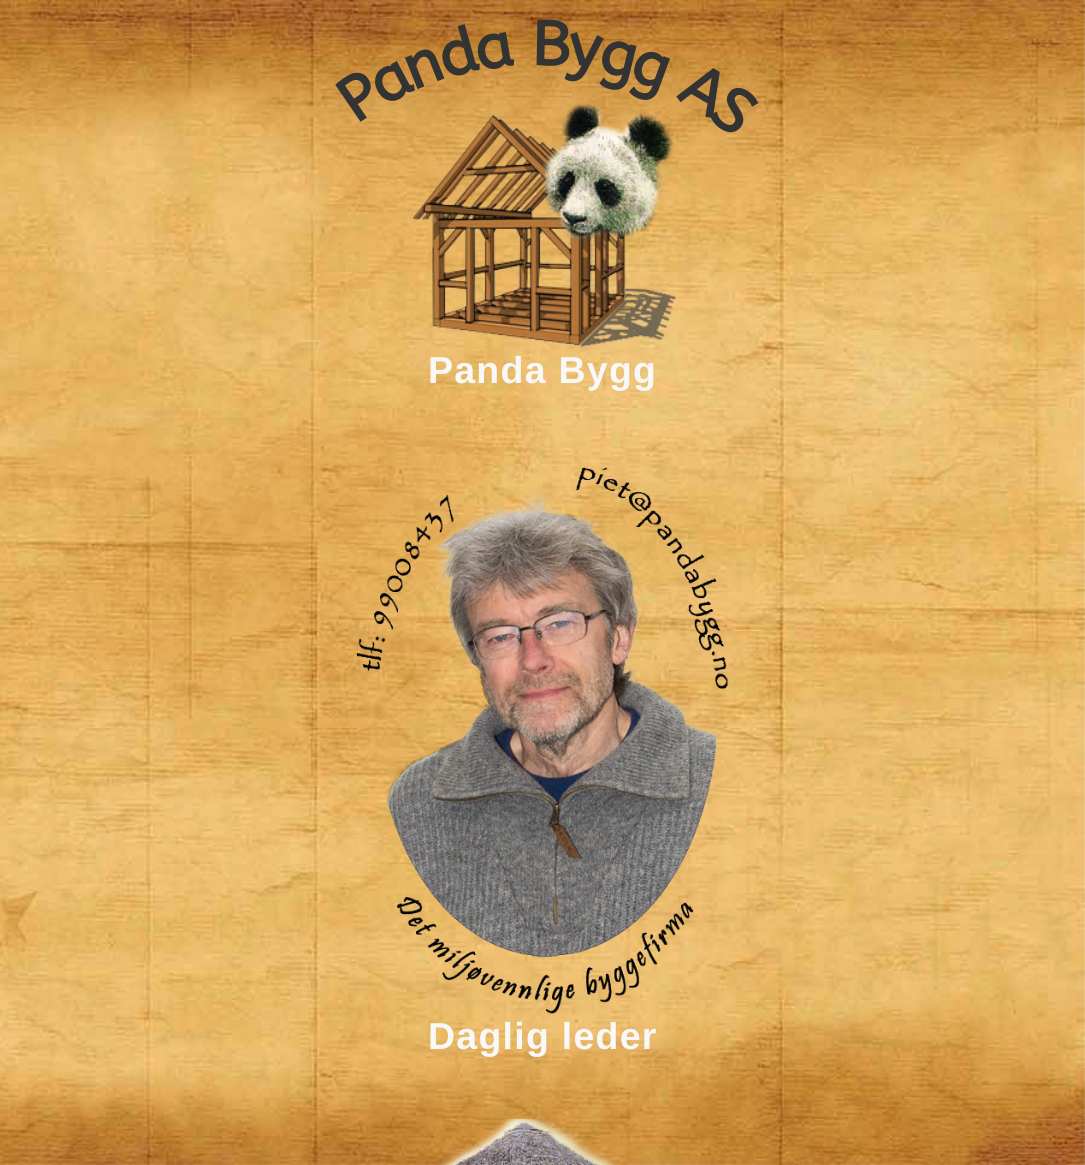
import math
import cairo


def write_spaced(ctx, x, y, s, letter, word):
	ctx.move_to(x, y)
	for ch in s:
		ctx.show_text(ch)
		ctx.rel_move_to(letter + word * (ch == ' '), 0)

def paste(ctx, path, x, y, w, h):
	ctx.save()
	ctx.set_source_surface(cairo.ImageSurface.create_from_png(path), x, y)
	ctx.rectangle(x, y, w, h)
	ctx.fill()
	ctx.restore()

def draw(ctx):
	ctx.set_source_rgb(1, 1, 1)
	ctx.paint()
	paste(ctx, 'media/1.png', 0, 0, 1085, 1165)
	ctx.select_font_face('ABeeZee', cairo.FONT_SLANT_NORMAL, cairo.FONT_WEIGHT_BOLD)
	ctx.set_font_size(62)
	ctx.set_source_rgb(0.2, 0.2, 0.2)
	ctx.save()
	ctx.translate(356, 125)
	ctx.rotate(-34.4 * math.pi / 180)
	ctx.move_to(0, 0)
	ctx.show_text('P')
	ctx.restore()
	ctx.save()
	ctx.translate(383, 107)
	ctx.rotate(-28.1 * math.pi / 180)
	ctx.move_to(0, 0)
	ctx.show_text('a')
	ctx.restore()
	ctx.save()
	ctx.translate(413, 91)
	ctx.rotate(-21.8 * math.pi / 180)
	ctx.move_to(0, 0)
	ctx.show_text('n')
	ctx.restore()
	ctx.save()
	ctx.translate(445, 79)
	ctx.rotate(-15.5 * math.pi / 180)
	ctx.move_to(0, 0)
	ctx.show_text('d')
	ctx.restore()
	ctx.save()
	ctx.translate(478, 71)
	ctx.rotate(-9.2 * math.pi / 180)
	ctx.move_to(0, 0)
	ctx.show_text('a')
	ctx.restore()
	ctx.save()
	ctx.translate(531, 65)
	ctx.rotate(1.1 * math.pi / 180)
	ctx.move_to(0, 0)
	ctx.show_text('B')
	ctx.restore()
	ctx.save()
	ctx.translate(566, 66)
	ctx.rotate(7.4 * math.pi / 180)
	ctx.move_to(0, 0)
	ctx.show_text('y')
	ctx.restore()
	ctx.save()
	ctx.translate(596, 71)
	ctx.rotate(13.8 * math.pi / 180)
	ctx.move_to(0, 0)
	ctx.show_text('g')
	ctx.restore()
	ctx.save()
	ctx.translate(627, 79)
	ctx.rotate(20.1 * math.pi / 180)
	ctx.move_to(0, 0)
	ctx.show_text('g')
	ctx.restore()
	ctx.save()
	ctx.translate(675, 98)
	ctx.rotate(30.4 * math.pi / 180)
	ctx.move_to(0, 0)
	ctx.show_text('A')
	ctx.restore()
	ctx.save()
	ctx.translate(706, 117)
	ctx.rotate(36.7 * math.pi / 180)
	ctx.move_to(0, 0)
	ctx.show_text('S')
	ctx.restore()
	paste(ctx, 'media/2.png', 412, 103, 265, 244)
	ctx.select_font_face('Liberation Sans', cairo.FONT_SLANT_NORMAL, cairo.FONT_WEIGHT_BOLD)
	ctx.set_font_size(37.5)
	ctx.set_source_rgb(0.969, 0.969, 0.969)
	write_spaced(ctx, 428, 383, 'Panda Bygg', 1.25, 0)
	paste(ctx, 'media/3.png', 356, 467, 373, 547)
	write_spaced(ctx, 428, 1049, 'Daglig leder', 1.25, 0)
	paste(ctx, 'media/4.png', 439, 1118, 179, 47)


surface = cairo.ImageSurface(cairo.FORMAT_RGB24, 1085, 1165)
ctx = cairo.Context(surface)
options = cairo.FontOptions()
options.set_hint_metrics(cairo.HINT_METRICS_OFF)
options.set_hint_style(cairo.HINT_STYLE_NONE)
ctx.set_font_options(options)
ctx.set_miter_limit(4)
draw(ctx)
surface.write_to_png('image.png')
